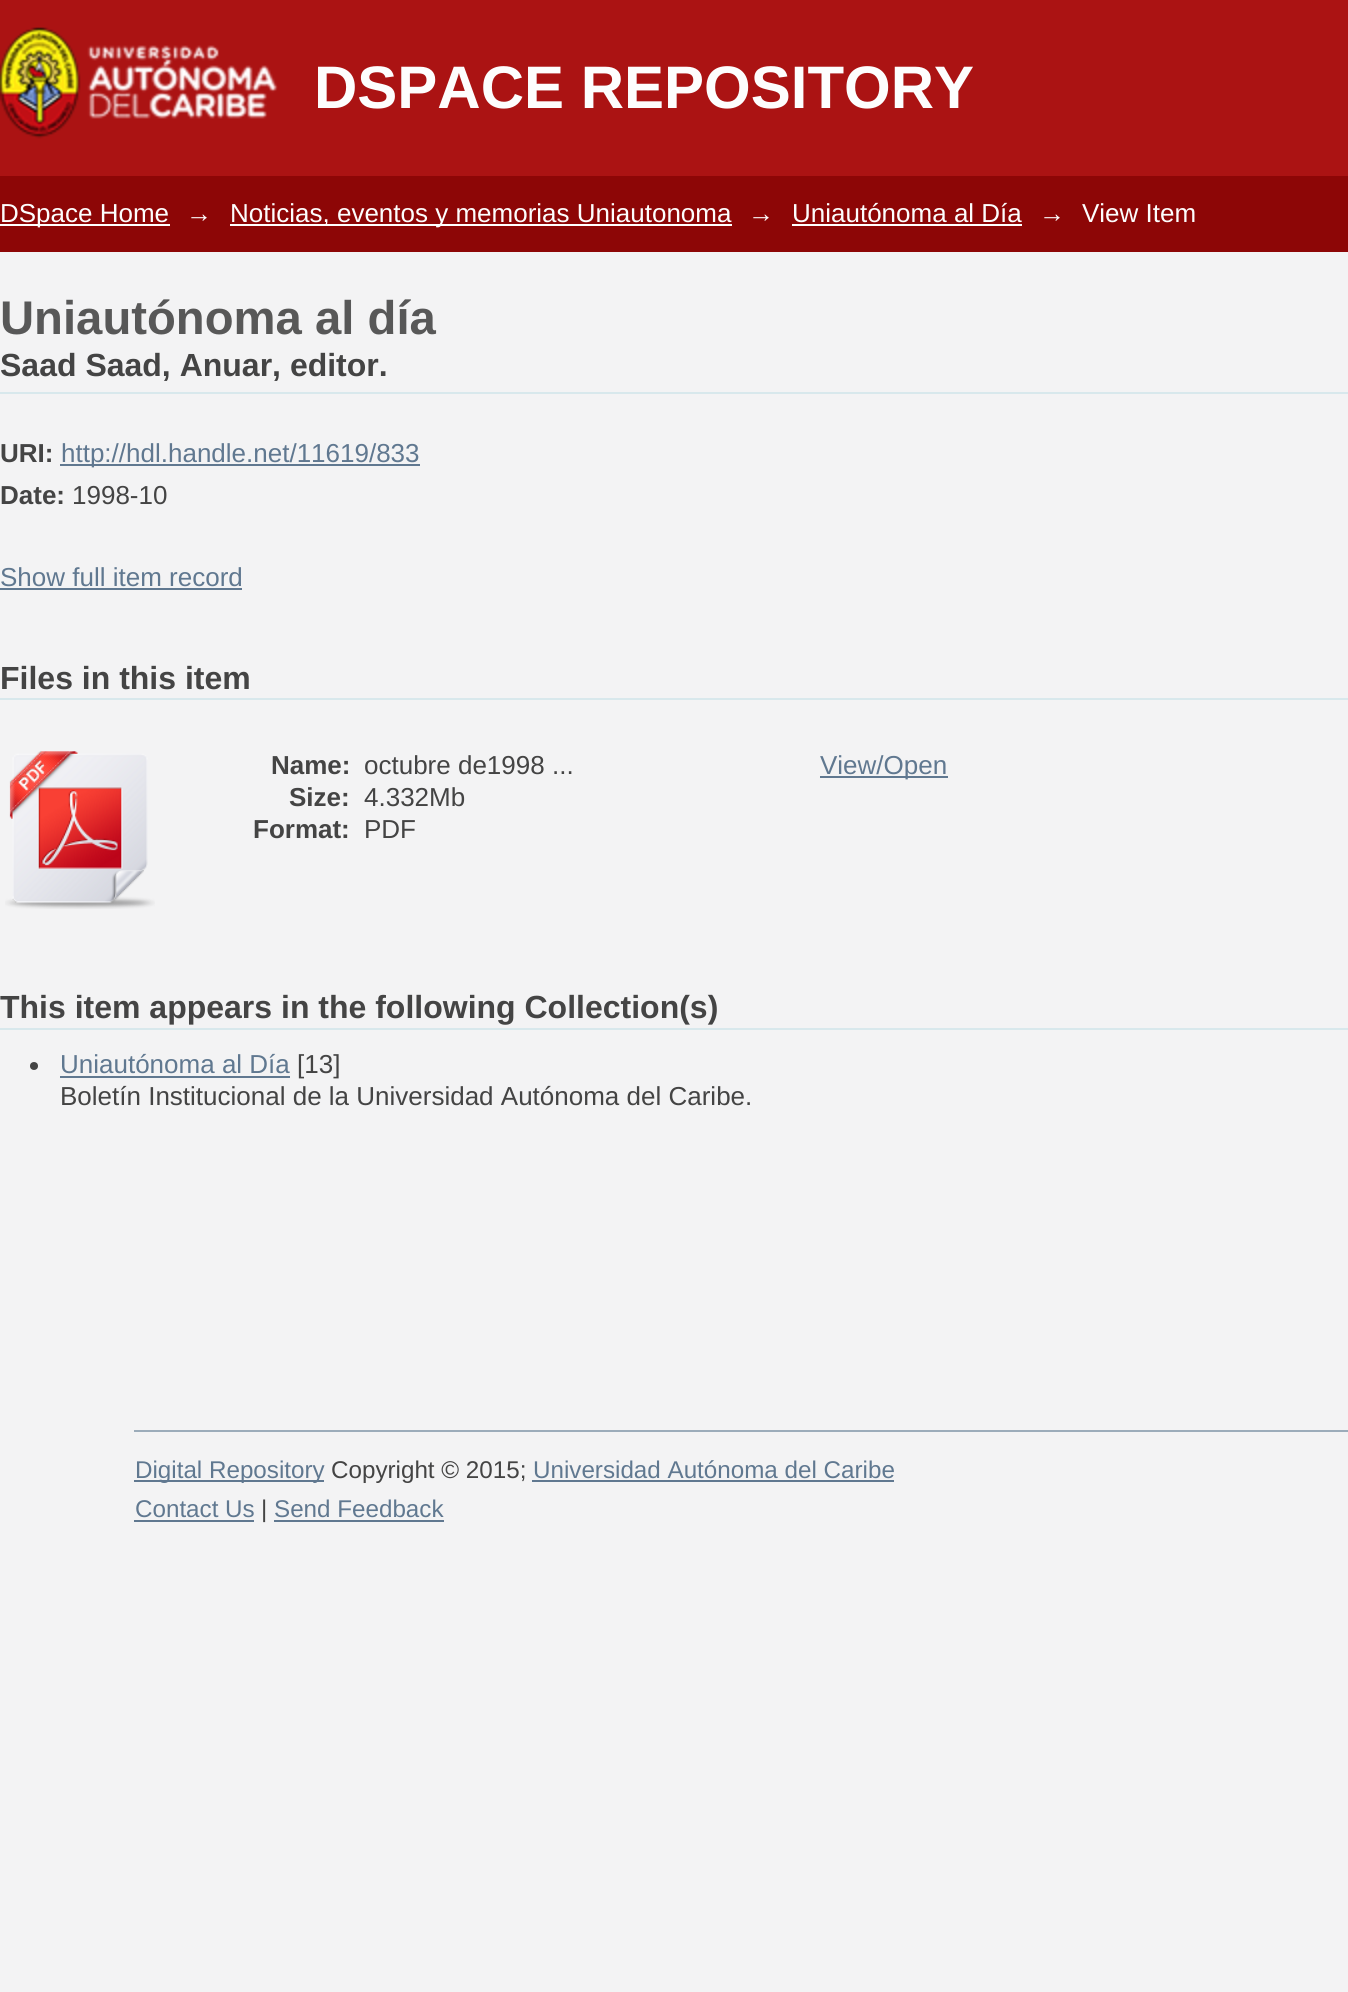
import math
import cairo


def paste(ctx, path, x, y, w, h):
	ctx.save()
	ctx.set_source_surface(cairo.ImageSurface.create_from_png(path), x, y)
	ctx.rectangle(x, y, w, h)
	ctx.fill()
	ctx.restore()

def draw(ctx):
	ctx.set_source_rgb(0.953, 0.953, 0.957)
	ctx.paint()
	ctx.set_source_rgb(0.671, 0.078, 0.078)
	ctx.rectangle(0, 0, 1348, 176)
	ctx.fill()
	paste(ctx, 'media/1.png', 0, 27, 278, 112)
	ctx.select_font_face('Liberation Sans', cairo.FONT_SLANT_NORMAL, cairo.FONT_WEIGHT_BOLD)
	ctx.set_font_size(60)
	ctx.set_source_rgb(0.992, 0.992, 0.992)
	ctx.move_to(314, 108)
	ctx.show_text('DSPACE REPOSITORY')
	ctx.set_source_rgb(0.553, 0.024, 0.024)
	ctx.rectangle(0, 176, 1348, 76)
	ctx.fill()
	ctx.set_source_rgb(1, 1, 1)
	ctx.rectangle(0, 224, 170, 2)
	ctx.fill()
	ctx.select_font_face('Liberation Sans')
	ctx.set_font_size(26)
	ctx.set_source_rgb(0.992, 0.992, 0.992)
	ctx.move_to(0, 222)
	ctx.show_text('DSpace Home')
	ctx.move_to(186, 222)
	ctx.show_text('→')
	ctx.set_source_rgb(1, 1, 1)
	ctx.rectangle(230, 224, 502, 2)
	ctx.fill()
	ctx.set_source_rgb(0.992, 0.992, 0.992)
	for x, y, s in [
		(230, 222, 'Noticias, eventos y memorias Uniautonoma'),
		(748, 222, '→'),
		(792, 222, 'Uniautónoma al Día'),
	]:
		ctx.move_to(x, y)
		ctx.show_text(s)
	ctx.set_source_rgb(1, 1, 1)
	ctx.rectangle(792, 224, 230, 2)
	ctx.fill()
	ctx.set_source_rgb(0.992, 0.992, 0.992)
	ctx.move_to(1039, 222)
	ctx.show_text('→')
	ctx.move_to(1082, 222)
	ctx.show_text('View Item')
	ctx.select_font_face('Liberation Sans', cairo.FONT_SLANT_NORMAL, cairo.FONT_WEIGHT_BOLD)
	ctx.set_font_size(47.25)
	ctx.set_source_rgb(0.345, 0.345, 0.345)
	ctx.move_to(0, 334)
	ctx.show_text('Uniautónoma al día')
	ctx.set_source_rgb(0.847, 0.91, 0.922)
	ctx.rectangle(0, 392, 1348, 2)
	ctx.fill()
	ctx.set_font_size(32)
	ctx.set_source_rgb(0.267, 0.267, 0.267)
	ctx.move_to(0, 376)
	ctx.show_text('Saad Saad, Anuar, editor.')
	ctx.set_font_size(26)
	ctx.move_to(0, 462)
	ctx.show_text('URI:')
	ctx.set_source_rgb(0.376, 0.471, 0.565)
	ctx.rectangle(60, 464, 360, 2)
	ctx.fill()
	ctx.select_font_face('Liberation Sans')
	ctx.move_to(61, 462)
	ctx.show_text('http://hdl.handle.net/11619/833')
	ctx.select_font_face('Liberation Sans', cairo.FONT_SLANT_NORMAL, cairo.FONT_WEIGHT_BOLD)
	ctx.set_source_rgb(0.267, 0.267, 0.267)
	ctx.move_to(0, 504)
	ctx.show_text('Date:')
	ctx.select_font_face('Liberation Sans')
	ctx.move_to(72, 504)
	ctx.show_text('1998-10')
	ctx.set_source_rgb(0.376, 0.471, 0.565)
	ctx.move_to(0, 586)
	ctx.show_text('Show full item record')
	ctx.rectangle(0, 588, 242, 2)
	ctx.fill()
	ctx.set_source_rgb(0.847, 0.91, 0.922)
	ctx.rectangle(0, 698, 1348, 2)
	ctx.fill()
	ctx.select_font_face('Liberation Sans', cairo.FONT_SLANT_NORMAL, cairo.FONT_WEIGHT_BOLD)
	ctx.set_font_size(32)
	ctx.set_source_rgb(0.267, 0.267, 0.267)
	ctx.move_to(0, 689)
	ctx.show_text('Files in this item')
	paste(ctx, 'media/2.png', 5, 751, 150, 158)
	ctx.set_font_size(26)
	ctx.move_to(271, 774)
	ctx.show_text('Name:')
	ctx.select_font_face('Liberation Sans')
	ctx.move_to(364, 774)
	ctx.show_text('octubre de1998 ...')
	ctx.select_font_face('Liberation Sans', cairo.FONT_SLANT_NORMAL, cairo.FONT_WEIGHT_BOLD)
	ctx.move_to(289, 806)
	ctx.show_text('Size:')
	ctx.select_font_face('Liberation Sans')
	ctx.move_to(364, 806)
	ctx.show_text('4.332Mb')
	ctx.select_font_face('Liberation Sans', cairo.FONT_SLANT_NORMAL, cairo.FONT_WEIGHT_BOLD)
	ctx.move_to(253, 838)
	ctx.show_text('Format:')
	ctx.select_font_face('Liberation Sans')
	ctx.move_to(364, 838)
	ctx.show_text('PDF')
	ctx.set_source_rgb(0.376, 0.471, 0.565)
	ctx.rectangle(820, 776, 128, 2)
	ctx.fill()
	ctx.move_to(820, 774)
	ctx.show_text('View/Open')
	ctx.set_source_rgb(0.847, 0.91, 0.922)
	ctx.rectangle(0, 1028, 1348, 2)
	ctx.fill()
	ctx.select_font_face('Liberation Sans', cairo.FONT_SLANT_NORMAL, cairo.FONT_WEIGHT_BOLD)
	ctx.set_font_size(32)
	ctx.set_source_rgb(0.267, 0.267, 0.267)
	ctx.move_to(0, 1018)
	ctx.show_text('This item appears in the following Collection(s)')
	ctx.new_path()
	ctx.arc(34, 1066, 4, 0, 2 * math.pi)
	ctx.fill()
	ctx.select_font_face('Liberation Sans')
	ctx.set_font_size(26)
	ctx.set_source_rgb(0.376, 0.471, 0.565)
	ctx.move_to(60, 1073)
	ctx.show_text('Uniautónoma al Día')
	ctx.rectangle(60, 1076, 230, 2)
	ctx.fill()
	ctx.set_source_rgb(0.267, 0.267, 0.267)
	ctx.move_to(297, 1073)
	ctx.show_text('[13]')
	ctx.move_to(60, 1105)
	ctx.show_text('Boletín Institucional de la Universidad Autónoma del Caribe.')
	ctx.set_source_rgb(0.612, 0.675, 0.729)
	ctx.rectangle(134, 1430, 1214, 2)
	ctx.fill()
	ctx.set_source_rgb(0.376, 0.471, 0.565)
	ctx.rectangle(134, 1480, 190, 2)
	ctx.fill()
	ctx.set_font_size(24.2)
	ctx.move_to(135, 1478)
	ctx.show_text('Digital Repository')
	ctx.set_source_rgb(0.267, 0.267, 0.267)
	ctx.move_to(331, 1478)
	ctx.show_text('Copyright © 2015;')
	ctx.set_source_rgb(0.376, 0.471, 0.565)
	ctx.move_to(533, 1478)
	ctx.show_text('Universidad Autónoma del Caribe')
	ctx.rectangle(532, 1480, 362, 2)
	ctx.fill()
	ctx.move_to(135, 1517)
	ctx.show_text('Contact Us')
	ctx.rectangle(134, 1520, 120, 2)
	ctx.fill()
	ctx.set_source_rgb(0.267, 0.267, 0.267)
	ctx.move_to(261, 1517)
	ctx.show_text('|')
	ctx.set_source_rgb(0.376, 0.471, 0.565)
	ctx.move_to(274, 1517)
	ctx.show_text('Send Feedback')
	ctx.rectangle(274, 1520, 170, 2)
	ctx.fill()


surface = cairo.ImageSurface(cairo.FORMAT_RGB24, 1348, 1992)
ctx = cairo.Context(surface)
options = cairo.FontOptions()
options.set_hint_metrics(cairo.HINT_METRICS_OFF)
options.set_hint_style(cairo.HINT_STYLE_NONE)
ctx.set_font_options(options)
ctx.set_miter_limit(4)
draw(ctx)
surface.write_to_png('image.png')
